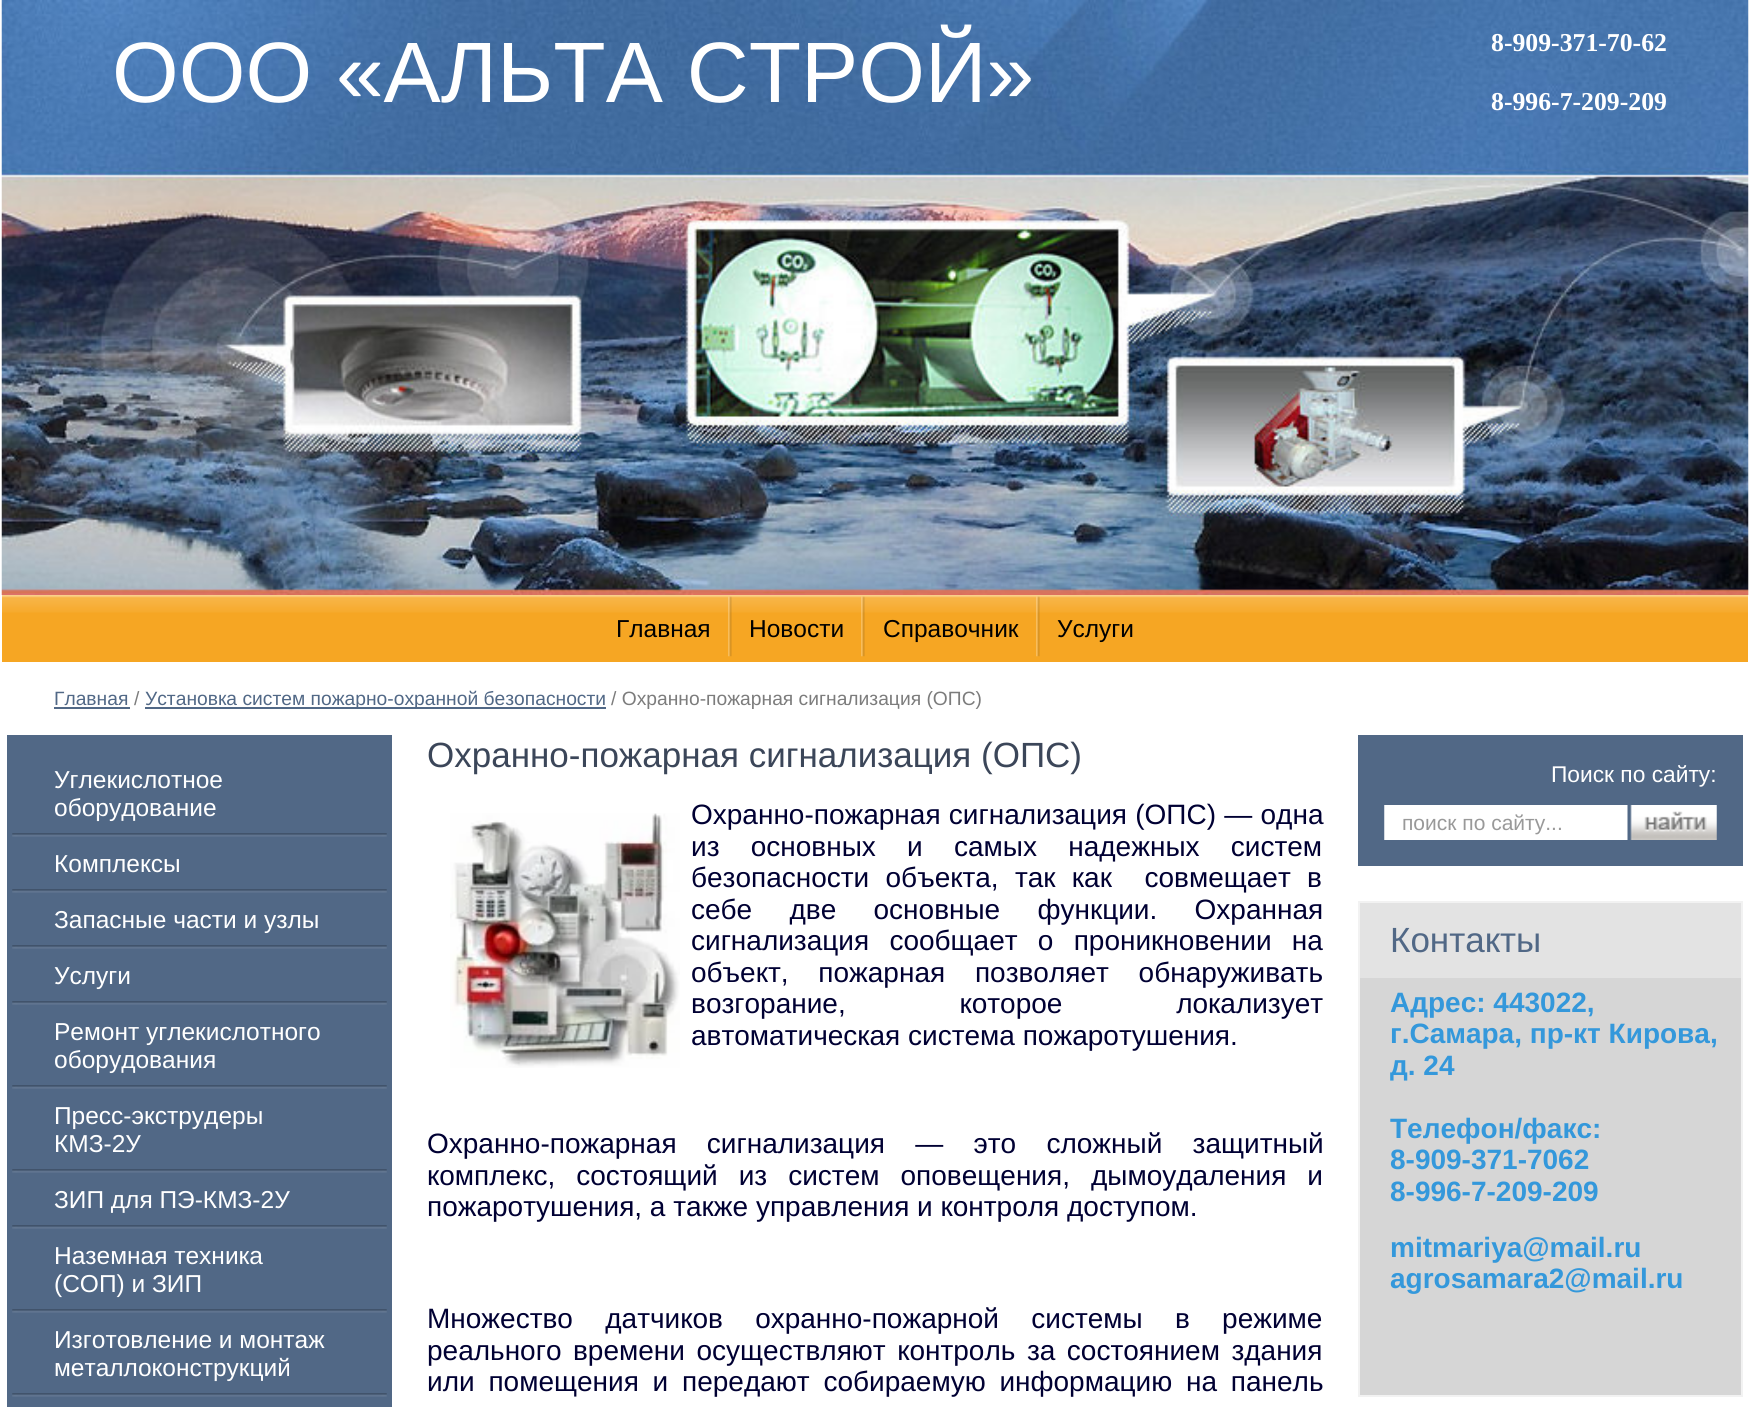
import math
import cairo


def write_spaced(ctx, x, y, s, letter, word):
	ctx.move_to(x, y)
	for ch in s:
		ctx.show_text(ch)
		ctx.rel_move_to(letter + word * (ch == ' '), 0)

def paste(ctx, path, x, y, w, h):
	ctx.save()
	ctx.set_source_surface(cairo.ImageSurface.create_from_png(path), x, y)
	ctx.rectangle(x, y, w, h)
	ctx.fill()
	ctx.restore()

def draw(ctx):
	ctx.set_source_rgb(1, 1, 1)
	ctx.paint()
	paste(ctx, 'media/1.png', 1, 0, 1748, 595)
	ctx.select_font_face('Liberation Sans')
	ctx.set_font_size(85.75)
	ctx.set_source_rgb(1, 1, 1)
	ctx.move_to(112, 102)
	ctx.show_text('ООО «АЛЬТА СТРОЙ»')
	ctx.select_font_face('Liberation Serif', cairo.FONT_SLANT_NORMAL, cairo.FONT_WEIGHT_BOLD)
	ctx.set_font_size(25.75)
	ctx.move_to(1491, 51)
	ctx.show_text('8-909-371-70-62')
	ctx.move_to(1491, 110)
	ctx.show_text('8-996-7-209-209')
	ctx.set_source_rgb(0.961, 0.651, 0.137)
	ctx.rectangle(2, 595, 1746, 67)
	ctx.fill()
	paste(ctx, 'media/2.png', 2, 595, 1746, 18)
	ctx.select_font_face('Liberation Sans')
	ctx.set_font_size(24.5)
	ctx.set_source_rgb(0, 0, 0)
	ctx.move_to(616, 637)
	ctx.show_text('Главная')
	paste(ctx, 'media/3.png', 728, 596, 4, 61)
	ctx.move_to(749, 637)
	ctx.show_text('Новости')
	paste(ctx, 'media/3.png', 861, 596, 4, 61)
	ctx.move_to(883, 637)
	ctx.show_text('Справочник')
	paste(ctx, 'media/3.png', 1036, 596, 4, 61)
	ctx.move_to(1057, 637)
	ctx.show_text('Услуги')
	ctx.set_font_size(19.25)
	ctx.set_source_rgb(0.318, 0.408, 0.525)
	ctx.move_to(54, 705)
	ctx.show_text('Главная')
	ctx.rectangle(54, 707, 76, 2)
	ctx.fill()
	ctx.set_source_rgb(0.486, 0.486, 0.486)
	ctx.move_to(134, 705)
	ctx.show_text('/')
	ctx.set_source_rgb(0.318, 0.408, 0.525)
	ctx.rectangle(145, 707, 461, 2)
	ctx.fill()
	ctx.move_to(145, 705)
	ctx.show_text('Установка систем пожарно-охранной безопасности')
	ctx.set_source_rgb(0.486, 0.486, 0.486)
	ctx.move_to(611, 705)
	ctx.show_text('/ Охранно-пожарная сигнализация (ОПС)')
	ctx.set_source_rgb(0.318, 0.408, 0.525)
	ctx.rectangle(7, 735, 385, 672)
	ctx.fill()
	paste(ctx, 'media/4.png', 12, 833, 375, 4)
	ctx.set_font_size(24.5)
	ctx.set_source_rgb(1, 1, 1)
	ctx.move_to(54, 788)
	ctx.show_text('Углекислотное')
	ctx.move_to(54, 816)
	ctx.show_text('оборудование')
	paste(ctx, 'media/4.png', 12, 889, 375, 4)
	ctx.move_to(54, 872)
	ctx.show_text('Комплексы')
	paste(ctx, 'media/4.png', 12, 945, 375, 4)
	ctx.move_to(54, 928)
	ctx.show_text('Запасные части и узлы')
	paste(ctx, 'media/4.png', 12, 1001, 375, 4)
	ctx.move_to(54, 984)
	ctx.show_text('Услуги')
	paste(ctx, 'media/4.png', 12, 1085, 375, 4)
	ctx.move_to(54, 1040)
	ctx.show_text('Ремонт углекислотного')
	ctx.move_to(54, 1068)
	ctx.show_text('оборудования')
	paste(ctx, 'media/4.png', 12, 1169, 375, 4)
	ctx.move_to(54, 1124)
	ctx.show_text('Пресс-экструдеры')
	ctx.move_to(54, 1152)
	ctx.show_text('КМЗ-2У')
	paste(ctx, 'media/4.png', 12, 1225, 375, 4)
	ctx.move_to(54, 1208)
	ctx.show_text('ЗИП для ПЭ-КМЗ-2У')
	paste(ctx, 'media/4.png', 12, 1309, 375, 4)
	ctx.move_to(54, 1264)
	ctx.show_text('Наземная техника')
	ctx.move_to(54, 1292)
	ctx.show_text('(СОП) и ЗИП')
	paste(ctx, 'media/4.png', 12, 1393, 375, 4)
	ctx.move_to(54, 1348)
	ctx.show_text('Изготовление и монтаж')
	ctx.move_to(54, 1376)
	ctx.show_text('металлоконструкций')
	ctx.set_font_size(35)
	ctx.set_source_rgb(0.231, 0.275, 0.349)
	ctx.move_to(427, 767)
	ctx.show_text('Охранно-пожарная сигнализация (ОПС)')
	paste(ctx, 'media/5.png', 450, 813, 230, 255)
	ctx.set_font_size(28)
	ctx.set_source_rgb(0, 0, 0.2)
	write_spaced(ctx, 691, 824, 'Охранно-пожарная сигнализация (ОПС) — одна', 0, 0.5)
	write_spaced(ctx, 691, 856, 'из основных и самых надежных систем', 0, 23.5)
	write_spaced(ctx, 691, 887, 'безопасности объекта, так как  совмещает в', 0, 8.5)
	write_spaced(ctx, 691, 919, 'себе две основные функции. Охранная', 0, 29.5)
	write_spaced(ctx, 691, 950, 'сигнализация сообщает о проникновении на', 0, 12.5)
	write_spaced(ctx, 691, 982, 'объект, пожарная позволяет обнаруживать', 0, 22)
	write_spaced(ctx, 691, 1013, 'возгорание, которое локализует', 0, 106)
	ctx.move_to(691, 1045)
	ctx.show_text('автоматическая система пожаротушения.')
	write_spaced(ctx, 427, 1153, 'Охранно-пожарная сигнализация — это сложный защитный', 0, 22.5)
	write_spaced(ctx, 427, 1185, 'комплекс, состоящий из систем оповещения, дымоудаления и', 0, 13.25)
	ctx.move_to(427, 1216)
	ctx.show_text('пожаротушения, а также управления и контроля доступом.')
	write_spaced(ctx, 427, 1328, 'Множество датчиков охранно-пожарной системы в режиме', 0, 24.5)
	write_spaced(ctx, 427, 1360, 'реального времени осуществляют контроль за состоянием здания', 0, 3.75)
	write_spaced(ctx, 427, 1391, 'или помещения и передают собираемую информацию на панель', 0, 6)
	ctx.set_source_rgb(0.318, 0.408, 0.525)
	ctx.rectangle(1358, 735, 385, 131)
	ctx.fill()
	ctx.set_font_size(22.75)
	ctx.set_source_rgb(1, 1, 1)
	ctx.move_to(1551, 782)
	ctx.show_text('Поиск по сайту:')
	paste(ctx, 'media/6.png', 1384, 805, 333, 35)
	ctx.set_font_size(21)
	ctx.set_source_rgb(0.6, 0.6, 0.6)
	ctx.move_to(1402, 830)
	ctx.show_text('поиск по сайту...')
	ctx.set_source_rgb(0.839, 0.839, 0.839)
	ctx.rectangle(1360, 978, 381, 417)
	ctx.fill()
	ctx.rectangle(1359, 902, 383, 494)
	ctx.set_source_rgb(0.949, 0.949, 0.949)
	ctx.stroke()
	ctx.set_source_rgb(0.89, 0.89, 0.89)
	ctx.rectangle(1360, 903, 381, 75)
	ctx.fill()
	ctx.set_font_size(35)
	ctx.set_source_rgb(0.318, 0.408, 0.525)
	ctx.move_to(1390, 952)
	ctx.show_text('Контакты')
	ctx.select_font_face('Liberation Sans', cairo.FONT_SLANT_NORMAL, cairo.FONT_WEIGHT_BOLD)
	ctx.set_font_size(28)
	ctx.set_source_rgb(0.204, 0.596, 0.859)
	for x, y, s in [
		(1390, 1012, 'Адрес: 443022,'),
		(1390, 1043, 'г.Самара, пр-кт Кирова,'),
		(1390, 1075, 'д. 24'),
		(1390, 1138, 'Телефон/факс:'),
		(1390, 1169, '8-909-371-7062'),
		(1390, 1201, '8-996-7-209-209'),
		(1390, 1257, 'mitmariya@mail.ru'),
		(1390, 1288, 'agrosamara2@mail.ru'),
	]:
		ctx.move_to(x, y)
		ctx.show_text(s)


surface = cairo.ImageSurface(cairo.FORMAT_RGB24, 1749, 1407)
ctx = cairo.Context(surface)
options = cairo.FontOptions()
options.set_hint_metrics(cairo.HINT_METRICS_OFF)
options.set_hint_style(cairo.HINT_STYLE_NONE)
ctx.set_font_options(options)
ctx.set_miter_limit(4)
draw(ctx)
surface.write_to_png('image.png')
